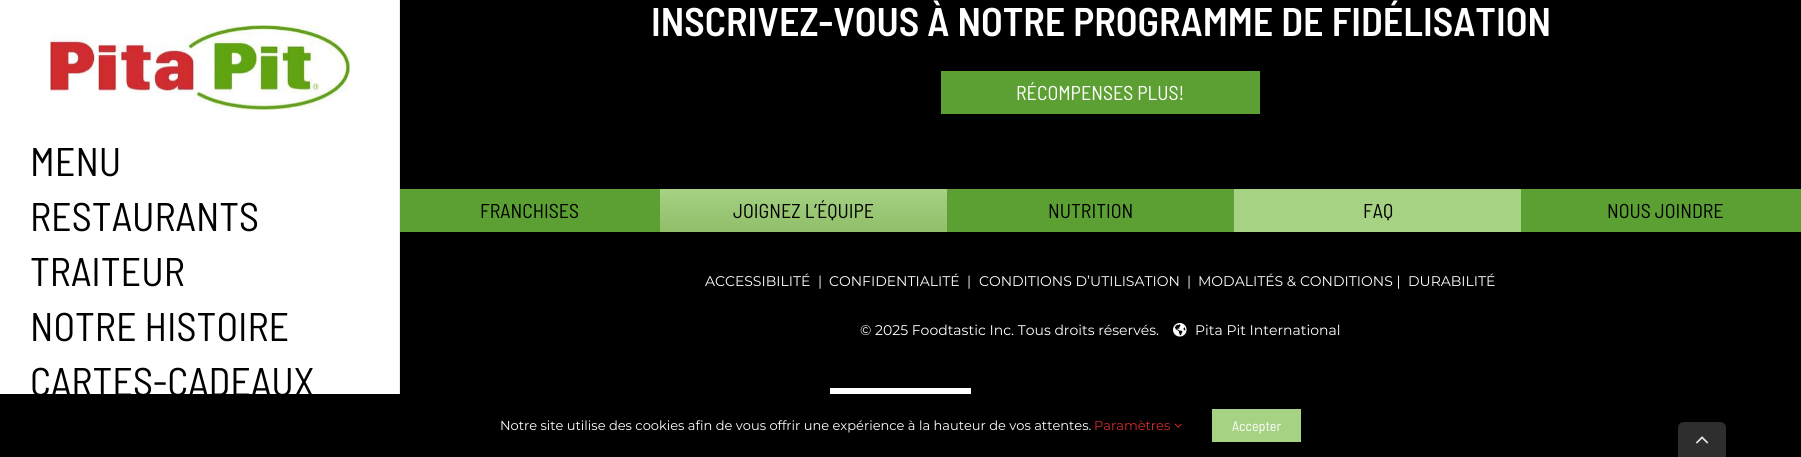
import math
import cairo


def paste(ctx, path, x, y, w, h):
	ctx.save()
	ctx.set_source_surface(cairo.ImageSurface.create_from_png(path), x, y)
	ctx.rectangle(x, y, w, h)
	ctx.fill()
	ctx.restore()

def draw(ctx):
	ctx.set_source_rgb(0, 0, 0)
	ctx.paint()
	ctx.set_source_rgb(1, 1, 1)
	ctx.rectangle(0, 0, 399, 394)
	ctx.fill()
	ctx.set_source_rgb(0.918, 0.918, 0.918)
	ctx.rectangle(399, 0, 1, 394)
	ctx.fill()
	paste(ctx, 'media/1.png', 50, 25, 300, 85)
	ctx.select_font_face('Barlow Semi Condensed')
	ctx.set_font_size(40)
	ctx.set_source_rgb(0, 0, 0)
	for x, y, s in [
		(30, 176, 'MENU'),
		(30, 231, 'RESTAURANTS'),
		(30, 286, 'TRAITEUR'),
		(30, 341, 'NOTRE HISTOIRE'),
		(30, 396, 'CARTES-CADEAUX'),
	]:
		ctx.move_to(x, y)
		ctx.show_text(s)
	ctx.select_font_face('Barlow Semi Condensed SemiBold')
	ctx.set_source_rgb(1, 1, 1)
	ctx.move_to(651, 36)
	ctx.show_text('INSCRIVEZ-VOUS À NOTRE PROGRAMME DE FIDÉLISATION')
	ctx.set_source_rgb(0.361, 0.624, 0.196)
	ctx.rectangle(941, 71, 319, 43)
	ctx.fill()
	ctx.select_font_face('Barlow Semi Condensed')
	ctx.set_font_size(20)
	ctx.set_source_rgb(1, 1, 1)
	ctx.move_to(1016, 100)
	ctx.show_text('RÉCOMPENSES PLUS!')
	ctx.set_source_rgb(0.361, 0.624, 0.196)
	ctx.rectangle(400, 189, 260, 43)
	ctx.fill()
	ctx.set_source_rgb(0, 0, 0)
	ctx.move_to(480, 218)
	ctx.show_text('FRANCHISES')
	gradient = cairo.LinearGradient(804, 189, 804, 232)
	gradient.add_color_stop_rgba(0, 0.647, 0.824, 0.514, 1)
	gradient.add_color_stop_rgba(1, 0.569, 0.745, 0.412, 1)
	ctx.set_source(gradient)
	ctx.rectangle(660, 189, 287, 43)
	ctx.fill()
	ctx.set_source_rgb(0, 0, 0)
	ctx.move_to(733, 218)
	ctx.show_text('JOIGNEZ L’ÉQUIPE')
	ctx.set_source_rgb(0.361, 0.624, 0.196)
	ctx.rectangle(947, 189, 287, 43)
	ctx.fill()
	ctx.set_source_rgb(0, 0, 0)
	ctx.move_to(1048, 218)
	ctx.show_text('NUTRITION')
	ctx.set_source_rgb(0.647, 0.824, 0.514)
	ctx.rectangle(1234, 189, 287, 43)
	ctx.fill()
	ctx.set_source_rgb(0, 0, 0)
	ctx.move_to(1363, 218)
	ctx.show_text('FAQ')
	ctx.set_source_rgb(0.361, 0.624, 0.196)
	ctx.rectangle(1521, 189, 280, 43)
	ctx.fill()
	ctx.set_source_rgb(0, 0, 0)
	ctx.move_to(1607, 218)
	ctx.show_text('NOUS JOINDRE')
	ctx.select_font_face('Montserrat')
	ctx.set_font_size(14)
	ctx.set_source_rgb(1, 1, 1)
	for x, y, s in [
		(705, 286, 'ACCESSIBILITÉ'),
		(818, 286, '|'),
		(829, 286, 'CONFIDENTIALITÉ'),
		(967, 286, '|'),
		(979, 286, 'CONDITIONS D’UTILISATION'),
		(1187, 286, '|'),
		(1198, 286, 'MODALITÉS & CONDITIONS |'),
		(1408, 286, 'DURABILITÉ'),
		(860, 335, '© 2025 Foodtastic Inc. Tous droits réservés.'),
	]:
		ctx.move_to(x, y)
		ctx.show_text(s)
	paste(ctx, 'media/2.png', 1173, 323, 14, 14)
	ctx.move_to(1195, 335)
	ctx.show_text('Pita Pit International')
	ctx.rectangle(830, 388, 141, 6)
	ctx.fill()
	ctx.set_font_size(13)
	ctx.move_to(500, 430)
	ctx.show_text('Notre site utilise des cookies afin de vous offrir une expérience à la hauteur de vos attentes.')
	ctx.set_source_rgb(0.827, 0.173, 0.173)
	ctx.move_to(1094, 430)
	ctx.show_text('Paramètres')
	paste(ctx, 'media/3.png', 1174, 423, 8, 5)
	ctx.set_source_rgb(0.647, 0.824, 0.514)
	ctx.rectangle(1212, 409, 89, 33)
	ctx.fill()
	ctx.select_font_face('Barlow Semi Condensed')
	ctx.set_font_size(14)
	ctx.set_source_rgb(1, 1, 1)
	ctx.move_to(1232, 431)
	ctx.show_text('Accepter')
	ctx.set_source_rgb(0.18, 0.18, 0.18)
	ctx.new_path()
	ctx.move_to(1684, 422)
	ctx.line_to(1720, 422)
	ctx.curve_to(1723.5, 422, 1726, 424.5, 1726, 428)
	ctx.line_to(1726, 457)
	ctx.line_to(1678, 457)
	ctx.line_to(1678, 428)
	ctx.curve_to(1678, 424.5, 1680.5, 422, 1684, 422)
	ctx.close_path()
	ctx.fill()
	paste(ctx, 'media/4.png', 1696, 436, 13, 8)


surface = cairo.ImageSurface(cairo.FORMAT_RGB24, 1801, 457)
ctx = cairo.Context(surface)
options = cairo.FontOptions()
options.set_hint_metrics(cairo.HINT_METRICS_OFF)
options.set_hint_style(cairo.HINT_STYLE_NONE)
ctx.set_font_options(options)
ctx.set_miter_limit(4)
draw(ctx)
surface.write_to_png('image.png')
